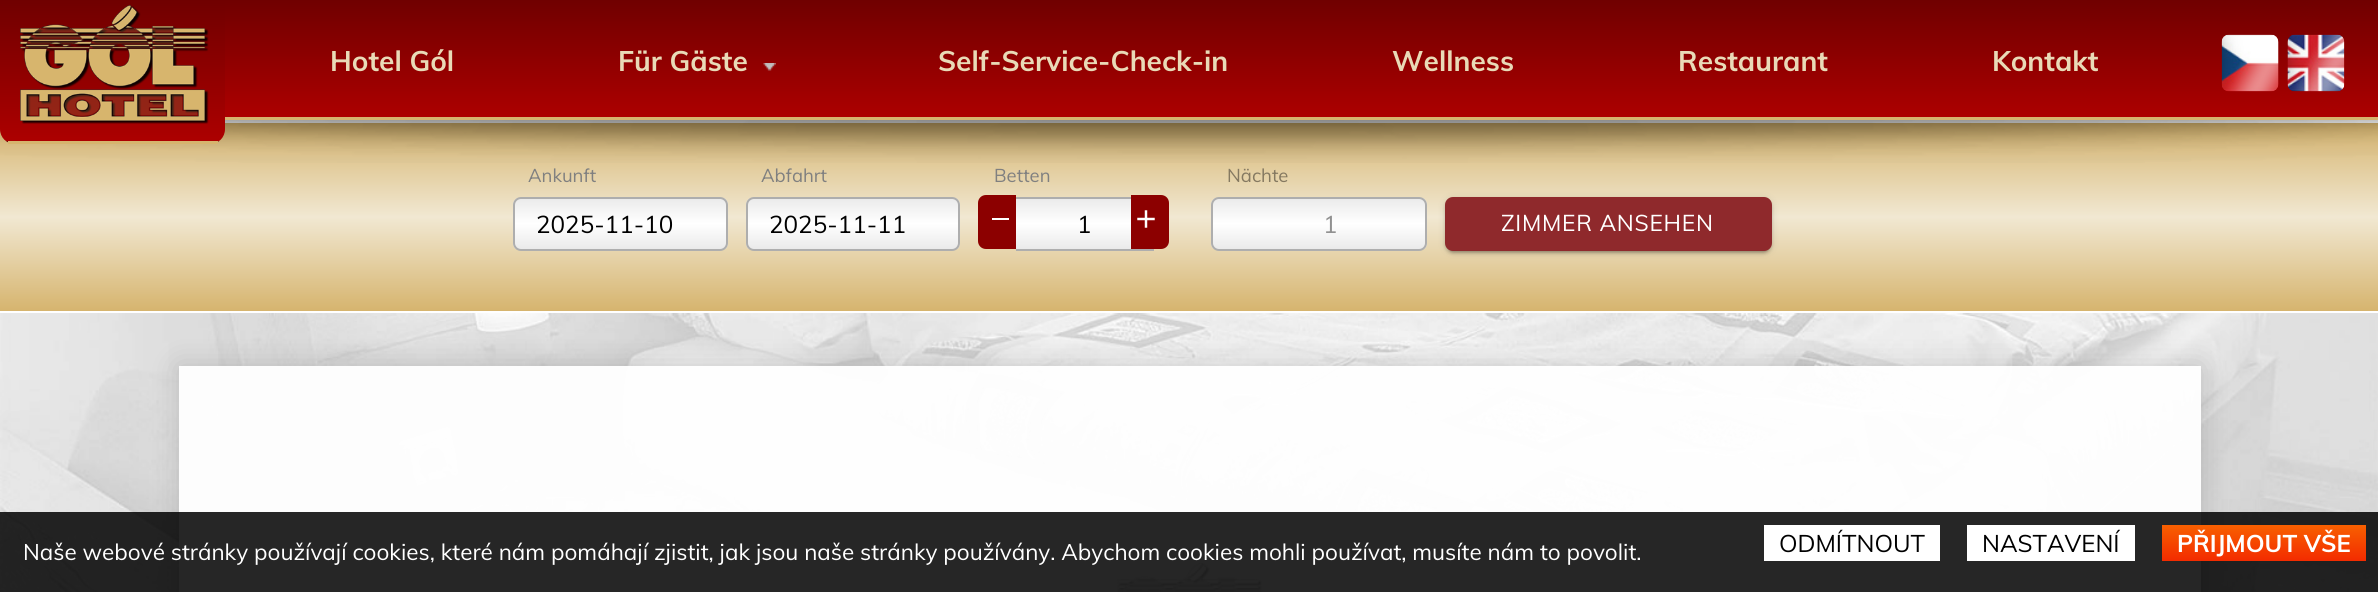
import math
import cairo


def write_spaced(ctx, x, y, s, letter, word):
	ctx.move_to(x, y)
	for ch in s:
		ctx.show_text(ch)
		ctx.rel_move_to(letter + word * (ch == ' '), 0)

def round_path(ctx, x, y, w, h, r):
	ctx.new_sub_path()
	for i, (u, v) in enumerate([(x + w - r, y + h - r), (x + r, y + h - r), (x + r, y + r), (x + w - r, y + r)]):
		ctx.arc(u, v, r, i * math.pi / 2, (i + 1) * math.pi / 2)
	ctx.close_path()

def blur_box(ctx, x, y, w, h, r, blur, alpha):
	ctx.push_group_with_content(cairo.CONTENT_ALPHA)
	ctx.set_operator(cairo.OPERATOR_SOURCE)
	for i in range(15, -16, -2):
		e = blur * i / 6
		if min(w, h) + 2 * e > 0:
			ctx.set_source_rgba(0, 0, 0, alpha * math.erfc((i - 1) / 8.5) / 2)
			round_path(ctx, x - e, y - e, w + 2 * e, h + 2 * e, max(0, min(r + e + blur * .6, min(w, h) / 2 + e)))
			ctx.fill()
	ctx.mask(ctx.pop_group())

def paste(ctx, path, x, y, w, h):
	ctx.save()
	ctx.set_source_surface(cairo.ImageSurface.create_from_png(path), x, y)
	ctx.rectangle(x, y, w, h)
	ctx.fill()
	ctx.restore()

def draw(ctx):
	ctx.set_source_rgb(1, 1, 1)
	ctx.paint()
	gradient = cairo.LinearGradient(1190, 123, 1190, 311)
	gradient.add_color_stop_rgba(0, 0.839, 0.706, 0.431, 1)
	gradient.add_color_stop_rgba(0.5, 0.945, 0.91, 0.824, 1)
	gradient.add_color_stop_rgba(1, 0.839, 0.706, 0.431, 1)
	ctx.set_source(gradient)
	ctx.rectangle(0, 123, 2378, 188)
	ctx.fill()
	paste(ctx, 'media/1.png', 0, 120, 2378, 43)
	gradient = cairo.LinearGradient(1190, 0, 1190, 117)
	gradient.add_color_stop_rgba(0, 0.439, 0, 0, 1)
	gradient.add_color_stop_rgba(1, 0.675, 0, 0, 1)
	ctx.set_source(gradient)
	ctx.rectangle(225, 0, 2153, 117)
	ctx.fill()
	ctx.set_source_rgb(0.839, 0.706, 0.431)
	ctx.rectangle(225, 117, 2153, 3)
	ctx.fill()
	ctx.save()
	ctx.new_path()
	ctx.move_to(0, 0)
	ctx.line_to(225, 0)
	ctx.line_to(225, 129)
	ctx.curve_to(225, 137.5, 218.5, 144, 210, 144)
	ctx.line_to(15, 144)
	ctx.curve_to(6.5, 144, 0, 137.5, 0, 129)
	ctx.close_path()
	ctx.clip()
	gradient = cairo.LinearGradient(113, 0, 113, 141)
	gradient.add_color_stop_rgba(0, 0.439, 0, 0, 1)
	gradient.add_color_stop_rgba(1, 0.675, 0, 0, 1)
	ctx.set_source(gradient)
	ctx.rectangle(0, 0, 225, 141)
	ctx.fill()
	ctx.restore()
	paste(ctx, 'media/2.png', 20, 5, 189, 119)
	ctx.save()
	ctx.new_path()
	ctx.move_to(0, 0)
	ctx.line_to(225, 0)
	ctx.line_to(225, 129)
	ctx.curve_to(225, 137.5, 218.5, 144, 210, 144)
	ctx.line_to(15, 144)
	ctx.curve_to(6.5, 144, 0, 137.5, 0, 129)
	ctx.close_path()
	ctx.clip()
	gradient = cairo.LinearGradient(113, 141, 113, 282)
	gradient.add_color_stop_rgba(0, 0.439, 0, 0, 1)
	gradient.add_color_stop_rgba(1, 0.675, 0, 0, 1)
	ctx.set_source(gradient)
	ctx.rectangle(0, 141, 225, 2)
	ctx.fill()
	ctx.restore()
	ctx.rectangle(8, 141, 210, 3)
	ctx.fill()
	ctx.select_font_face('Muli', cairo.FONT_SLANT_NORMAL, cairo.FONT_WEIGHT_BOLD)
	ctx.set_font_size(28.1)
	ctx.set_source_rgb(0.914, 0.855, 0.718)
	ctx.move_to(330, 71)
	ctx.show_text('Hotel Gól')
	ctx.move_to(618, 71)
	ctx.show_text('Für Gäste')
	paste(ctx, 'media/3.png', 763, 63, 13, 8)
	for x, y, s in [
		(938, 71, 'Self-Service-Check-in'),
		(1392, 71, 'Wellness'),
		(1678, 71, 'Restaurant'),
		(1992, 71, 'Kontakt'),
	]:
		ctx.move_to(x, y)
		ctx.show_text(s)
	paste(ctx, 'media/4.png', 2221, 34, 58, 58)
	paste(ctx, 'media/5.png', 2287, 34, 58, 58)
	ctx.select_font_face('Muli')
	ctx.set_font_size(18.5)
	ctx.set_source_rgb(0.502, 0.502, 0.502)
	ctx.move_to(528, 182)
	ctx.show_text('Ankunft')
	ctx.save()
	round_path(ctx, 513, 197, 215, 54, 8)
	ctx.clip()
	gradient = cairo.LinearGradient(620, 198, 620, 249)
	gradient.add_color_stop_rgba(0, 0.918, 0.918, 0.918, 1)
	gradient.add_color_stop_rgba(0.5, 1, 1, 1, 1)
	gradient.add_color_stop_rgba(1, 0.918, 0.918, 0.918, 1)
	ctx.set_source(gradient)
	ctx.rectangle(513, 198, 215, 51)
	ctx.fill()
	ctx.restore()
	round_path(ctx, 514, 198, 213, 52, 7)
	ctx.set_source_rgb(0.682, 0.682, 0.682)
	ctx.stroke()
	ctx.set_font_size(24.25)
	ctx.set_source_rgb(0, 0, 0)
	ctx.move_to(536, 233)
	ctx.show_text('2025-11-10')
	ctx.set_font_size(18.5)
	ctx.set_source_rgb(0.502, 0.502, 0.502)
	ctx.move_to(761, 182)
	ctx.show_text('Abfahrt')
	ctx.save()
	round_path(ctx, 746, 197, 214, 54, 8)
	ctx.clip()
	gradient = cairo.LinearGradient(853, 198, 853, 249)
	gradient.add_color_stop_rgba(0, 0.918, 0.918, 0.918, 1)
	gradient.add_color_stop_rgba(0.5, 1, 1, 1, 1)
	gradient.add_color_stop_rgba(1, 0.918, 0.918, 0.918, 1)
	ctx.set_source(gradient)
	ctx.rectangle(746, 198, 214, 51)
	ctx.fill()
	ctx.restore()
	round_path(ctx, 747, 198, 212, 52, 7)
	ctx.set_source_rgb(0.682, 0.682, 0.682)
	ctx.stroke()
	ctx.set_font_size(24.25)
	ctx.set_source_rgb(0, 0, 0)
	ctx.move_to(769, 233)
	ctx.show_text('2025-11-11')
	ctx.set_font_size(18.5)
	ctx.set_source_rgb(0.502, 0.502, 0.502)
	ctx.move_to(994, 182)
	ctx.show_text('Betten')
	ctx.set_source_rgb(0.549, 0, 0)
	ctx.new_path()
	ctx.move_to(986, 195)
	ctx.line_to(1016, 195)
	ctx.line_to(1016, 249)
	ctx.line_to(986, 249)
	ctx.curve_to(981.5, 249, 978, 245.5, 978, 241)
	ctx.line_to(978, 203)
	ctx.curve_to(978, 198.5, 981.5, 195, 986, 195)
	ctx.close_path()
	ctx.fill()
	ctx.set_source_rgb(1, 1, 1)
	ctx.rectangle(992, 218, 17, 2)
	ctx.fill()
	gradient = cairo.LinearGradient(1085, 198, 1085, 249)
	gradient.add_color_stop_rgba(0, 0.918, 0.918, 0.918, 1)
	gradient.add_color_stop_rgba(0.5, 1, 1, 1, 1)
	gradient.add_color_stop_rgba(1, 0.918, 0.918, 0.918, 1)
	ctx.set_source(gradient)
	ctx.rectangle(1016, 199, 115, 50)
	ctx.fill()
	ctx.set_source_rgb(0.682, 0.682, 0.682)
	ctx.rectangle(1016, 197, 115, 2)
	ctx.fill()
	ctx.rectangle(1016, 249, 138, 2)
	ctx.fill()
	ctx.set_font_size(24.25)
	ctx.set_source_rgb(0, 0, 0)
	ctx.move_to(1077, 233)
	ctx.show_text('1')
	ctx.set_source_rgb(0.549, 0, 0)
	ctx.new_path()
	ctx.move_to(1131, 195)
	ctx.line_to(1161, 195)
	ctx.curve_to(1165.5, 195, 1169, 198.5, 1169, 203)
	ctx.line_to(1169, 241)
	ctx.curve_to(1169, 245.5, 1165.5, 249, 1161, 249)
	ctx.line_to(1131, 249)
	ctx.close_path()
	ctx.fill()
	paste(ctx, 'media/6.png', 1137, 210, 18, 18)
	ctx.set_font_size(18.5)
	ctx.set_source_rgb(0.522, 0.475, 0.38)
	ctx.move_to(1227, 182)
	ctx.show_text('Nächte')
	ctx.save()
	round_path(ctx, 1211, 197, 216, 54, 8)
	ctx.clip()
	gradient = cairo.LinearGradient(1319, 198, 1319, 249)
	gradient.add_color_stop_rgba(0, 0.918, 0.918, 0.918, 1)
	gradient.add_color_stop_rgba(0.5, 1, 1, 1, 1)
	gradient.add_color_stop_rgba(1, 0.918, 0.918, 0.918, 1)
	ctx.set_source(gradient)
	ctx.rectangle(1211, 198, 216, 51)
	ctx.fill()
	ctx.restore()
	round_path(ctx, 1212, 198, 214, 52, 7)
	ctx.set_source_rgb(0.682, 0.682, 0.682)
	ctx.stroke()
	ctx.set_font_size(24.25)
	ctx.set_source_rgb(0.569, 0.569, 0.569)
	ctx.move_to(1323, 233)
	ctx.show_text('1')
	ctx.set_source_rgb(0, 0, 0)
	blur_box(ctx, 1448, 204, 321, 48, 5, 1, 0.2)
	blur_box(ctx, 1445, 198, 327, 54, 8, 4, 0.12)
	blur_box(ctx, 1445, 200, 327, 54, 8, 1.5, 0.14)
	ctx.set_source_rgb(0.561, 0.161, 0.173)
	round_path(ctx, 1445, 197, 327, 54, 8)
	ctx.fill()
	ctx.set_font_size(22.75)
	ctx.set_source_rgb(1, 1, 1)
	write_spaced(ctx, 1501, 231, 'ZIMMER ANSEHEN', 0.75, 0)
	paste(ctx, 'media/7.png', 0, 313, 2378, 279)
	ctx.save()
	ctx.set_fill_rule(cairo.FILL_RULE_EVEN_ODD)
	ctx.new_path()
	ctx.move_to(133, 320)
	ctx.line_to(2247, 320)
	ctx.line_to(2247, 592)
	ctx.line_to(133, 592)
	ctx.close_path()
	ctx.move_to(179, 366)
	ctx.line_to(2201, 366)
	ctx.line_to(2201, 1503)
	ctx.line_to(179, 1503)
	ctx.close_path()
	ctx.clip()
	ctx.set_source_rgb(0, 0, 0)
	blur_box(ctx, 179, 366, 2022, 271, 0, 15, 0.15)
	ctx.restore()
	ctx.set_source_rgba(1, 1, 1, 0.95)
	ctx.rectangle(179, 366, 2022, 226)
	ctx.fill()
	paste(ctx, 'media/8.png', 1117, 563, 145, 29)
	ctx.set_source_rgba(0, 0, 0, 0.85)
	ctx.rectangle(0, 512, 2378, 80)
	ctx.fill()
	ctx.set_font_size(22.5)
	ctx.set_source_rgb(1, 1, 1)
	ctx.move_to(23, 560)
	ctx.show_text('Naše webové stránky používají cookies, které nám pomáhají zjistit, jak jsou naše stránky používány. Abychom cookies mohli používat, musíte nám to povolit.')
	ctx.rectangle(1764, 525, 176, 36)
	ctx.fill()
	ctx.set_font_size(24)
	ctx.set_source_rgb(0, 0, 0)
	ctx.move_to(1779, 552)
	ctx.show_text('ODMÍTNOUT')
	ctx.set_source_rgb(1, 1, 1)
	ctx.rectangle(1967, 525, 168, 36)
	ctx.fill()
	ctx.set_source_rgb(0, 0, 0)
	ctx.move_to(1982, 552)
	ctx.show_text('NASTAVENÍ')
	gradient = cairo.LinearGradient(2264, 525, 2264, 561)
	gradient.add_color_stop_rgba(0, 0.973, 0.376, 0, 1)
	gradient.add_color_stop_rgba(1, 0.953, 0.169, 0, 1)
	ctx.set_source(gradient)
	ctx.rectangle(2162, 525, 204, 36)
	ctx.fill()
	ctx.select_font_face('Muli', cairo.FONT_SLANT_NORMAL, cairo.FONT_WEIGHT_BOLD)
	ctx.set_source_rgb(1, 1, 1)
	ctx.move_to(2177, 552)
	ctx.show_text('PŘIJMOUT VŠE')


surface = cairo.ImageSurface(cairo.FORMAT_RGB24, 2378, 592)
ctx = cairo.Context(surface)
options = cairo.FontOptions()
options.set_hint_metrics(cairo.HINT_METRICS_OFF)
options.set_hint_style(cairo.HINT_STYLE_NONE)
ctx.set_font_options(options)
ctx.set_miter_limit(4)
draw(ctx)
surface.write_to_png('image.png')
